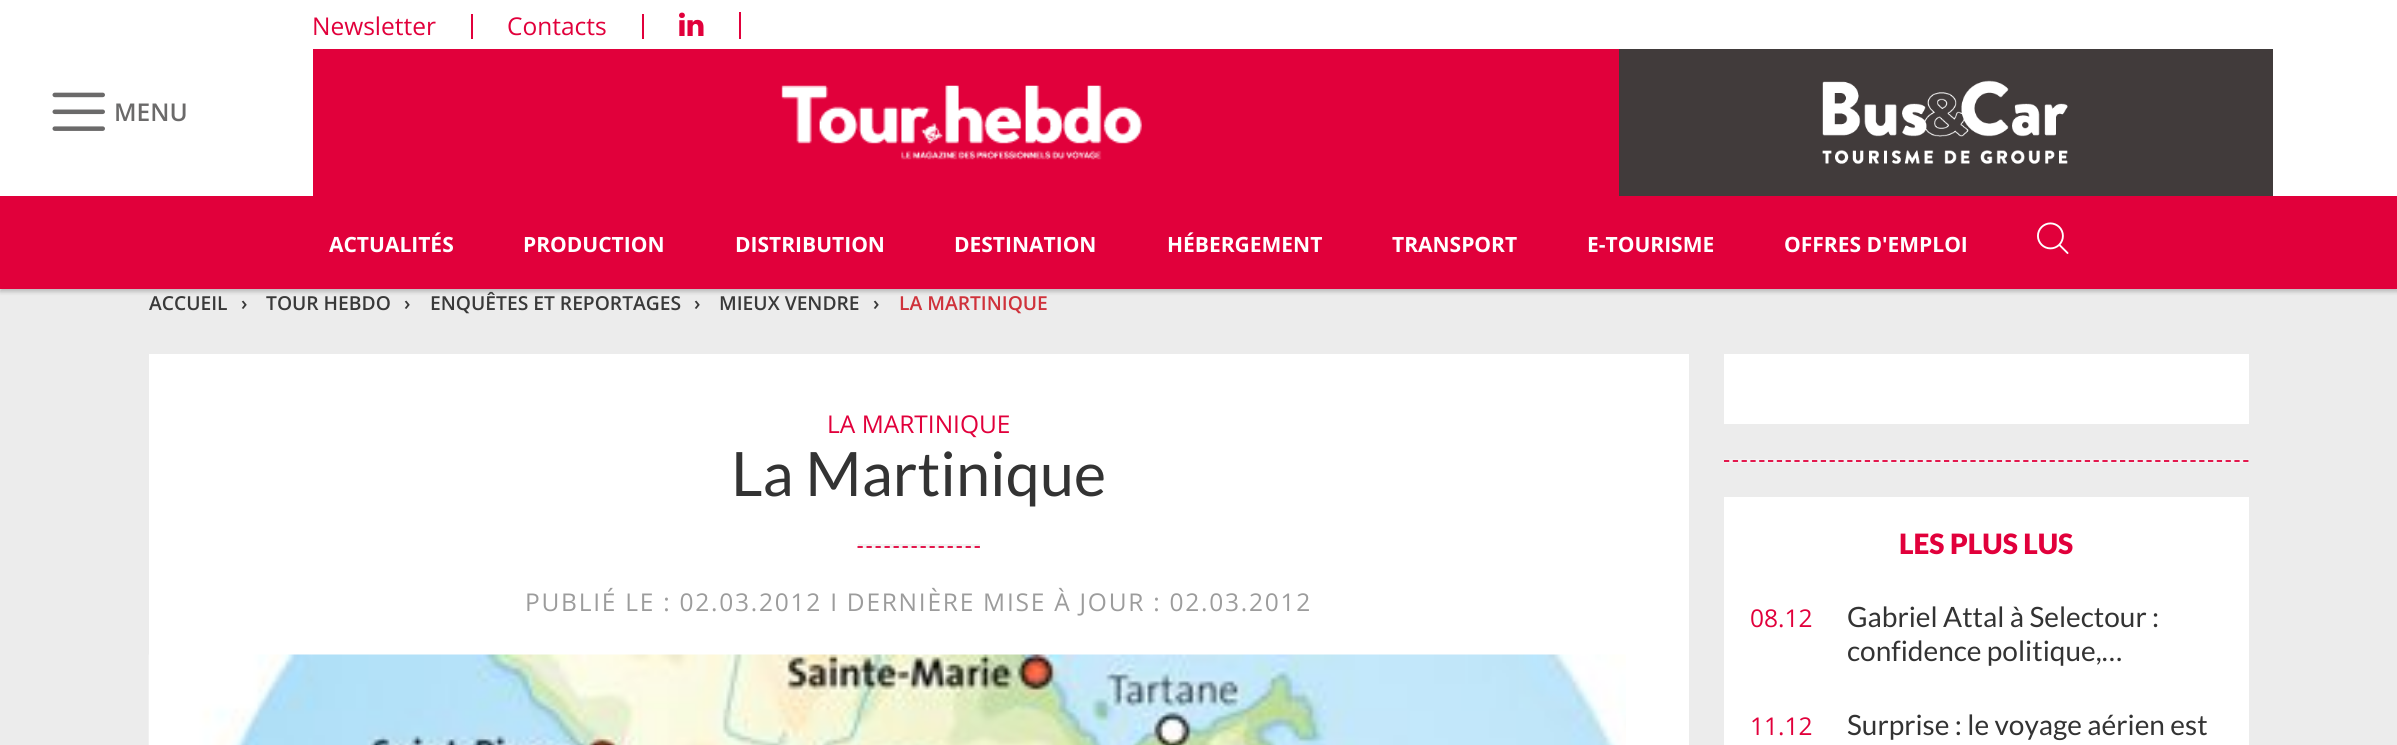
import math
import cairo


def write_spaced(ctx, x, y, s, letter, word):
	ctx.move_to(x, y)
	for ch in s:
		ctx.show_text(ch)
		ctx.rel_move_to(letter + word * (ch == ' '), 0)

def round_path(ctx, x, y, w, h, r):
	ctx.new_sub_path()
	for i, (u, v) in enumerate([(x + w - r, y + h - r), (x + r, y + h - r), (x + r, y + r), (x + w - r, y + r)]):
		ctx.arc(u, v, r, i * math.pi / 2, (i + 1) * math.pi / 2)
	ctx.close_path()

def blur_box(ctx, x, y, w, h, r, blur, alpha):
	ctx.push_group_with_content(cairo.CONTENT_ALPHA)
	ctx.set_operator(cairo.OPERATOR_SOURCE)
	for i in range(15, -16, -2):
		e = blur * i / 6
		if min(w, h) + 2 * e > 0:
			ctx.set_source_rgba(0, 0, 0, alpha * math.erfc((i - 1) / 8.5) / 2)
			round_path(ctx, x - e, y - e, w + 2 * e, h + 2 * e, max(0, min(r + e + blur * .6, min(w, h) / 2 + e)))
			ctx.fill()
	ctx.mask(ctx.pop_group())

def paste(ctx, path, x, y, w, h):
	ctx.save()
	ctx.set_source_surface(cairo.ImageSurface.create_from_png(path), x, y)
	ctx.rectangle(x, y, w, h)
	ctx.fill()
	ctx.restore()

def draw(ctx):
	ctx.set_source_rgb(0.922, 0.922, 0.922)
	ctx.paint()
	ctx.set_source_rgb(1, 1, 1)
	ctx.rectangle(0, 0, 2397, 196)
	ctx.fill()
	ctx.set_source_rgb(0.882, 0, 0.231)
	ctx.rectangle(471, 14, 2, 25)
	ctx.fill()
	ctx.select_font_face('Open Sans')
	ctx.set_font_size(24.5)
	ctx.move_to(312, 35)
	ctx.show_text('Newsletter')
	ctx.rectangle(642, 14, 2, 25)
	ctx.fill()
	ctx.move_to(507, 35)
	ctx.show_text('Contacts')
	ctx.rectangle(739, 12, 2, 27)
	ctx.fill()
	paste(ctx, 'media/1.png', 679, 12, 25, 24)
	paste(ctx, 'media/2.png', 52, 92, 53, 39)
	ctx.select_font_face('Open Sans SemiBold')
	ctx.set_source_rgb(0.42, 0.416, 0.416)
	ctx.move_to(114, 121)
	ctx.show_text('MENU')
	ctx.set_source_rgb(0.255, 0.231, 0.231)
	ctx.rectangle(1619, 49, 654, 147)
	ctx.fill()
	ctx.set_source_rgb(0.882, 0, 0.231)
	ctx.rectangle(313, 49, 1306, 147)
	ctx.fill()
	paste(ctx, 'media/3.png', 781, 85, 361, 75)
	paste(ctx, 'media/4.png', 1822, 80, 246, 84)
	ctx.set_source_rgb(0, 0, 0)
	blur_box(ctx, 0, 200, 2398, 92, 0, 2, 0.2)
	ctx.set_source_rgb(0.882, 0, 0.231)
	ctx.rectangle(0, 196, 2397, 93)
	ctx.fill()
	ctx.select_font_face('Open Sans', cairo.FONT_SLANT_NORMAL, cairo.FONT_WEIGHT_BOLD)
	ctx.set_font_size(21)
	ctx.set_source_rgb(1, 1, 1)
	for x, y, s in [
		(329, 252, 'ACTUALITÉS'),
		(523, 252, 'PRODUCTION'),
		(735, 252, 'DISTRIBUTION'),
		(954, 252, 'DESTINATION'),
		(1167, 252, 'HÉBERGEMENT'),
		(1392, 252, 'TRANSPORT'),
		(1587, 252, 'E-TOURISME'),
		(1784, 252, 'OFFRES D\'EMPLOI'),
	]:
		ctx.move_to(x, y)
		ctx.show_text(s)
	paste(ctx, 'media/5.png', 2037, 222, 32, 32)
	ctx.select_font_face('Open Sans SemiBold')
	ctx.set_font_size(19.25)
	ctx.set_source_rgb(0.224, 0.224, 0.224)
	for x, y, s in [
		(149, 310, 'ACCUEIL'),
		(241, 310, '›'),
		(266, 310, 'TOUR HEBDO'),
		(404, 310, '›'),
		(430, 310, 'ENQUÊTES ET REPORTAGES'),
		(694, 310, '›'),
		(719, 310, 'MIEUX VENDRE'),
		(873, 310, '›'),
	]:
		ctx.move_to(x, y)
		ctx.show_text(s)
	ctx.set_source_rgb(0.812, 0.196, 0.231)
	ctx.move_to(899, 310)
	ctx.show_text('LA MARTINIQUE')
	ctx.set_source_rgb(1, 1, 1)
	ctx.rectangle(149, 354, 1540, 391)
	ctx.fill()
	ctx.select_font_face('Open Sans')
	ctx.set_font_size(24.5)
	ctx.set_source_rgb(0.882, 0, 0.231)
	ctx.move_to(827, 433)
	ctx.show_text('LA MARTINIQUE')
	ctx.select_font_face('Lato')
	ctx.set_font_size(61.25)
	ctx.set_source_rgb(0.2, 0.2, 0.2)
	ctx.move_to(731, 496)
	ctx.show_text('La Martinique')
	ctx.set_source_rgb(0.949, 0.949, 0.949)
	ctx.rectangle(858, 544, 122, 4)
	ctx.fill()
	ctx.new_path()
	ctx.move_to(857.5, 547)
	ctx.line_to(980, 547)
	ctx.set_source_rgb(0.882, 0, 0.231)
	ctx.set_line_width(1.8)
	ctx.set_dash([5.25, 3.76])
	ctx.stroke()
	ctx.select_font_face('Open Sans')
	ctx.set_font_size(24.5)
	ctx.set_source_rgb(0.612, 0.612, 0.612)
	write_spaced(ctx, 525, 611, 'PUBLIÉ LE : 02.03.2012 I DERNIÈRE MISE À JOUR : 02.03.2012', 1.75, 0)
	paste(ctx, 'media/6.png', 148, 654, 1478, 91)
	ctx.set_source_rgb(1, 1, 1)
	ctx.rectangle(1724, 354, 525, 70)
	ctx.fill()
	ctx.set_source_rgb(0.949, 0.949, 0.949)
	ctx.rectangle(1724, 459, 525, 4)
	ctx.fill()
	ctx.new_path()
	ctx.move_to(1724, 461)
	ctx.line_to(2249, 461)
	ctx.set_source_rgb(0.882, 0, 0.231)
	ctx.set_dash([5.25, 3.55])
	ctx.stroke()
	ctx.set_source_rgb(1, 1, 1)
	ctx.rectangle(1724, 497, 525, 248)
	ctx.fill()
	ctx.select_font_face('Lato Black')
	ctx.set_font_size(28)
	ctx.set_source_rgb(0.882, 0, 0.231)
	ctx.move_to(1899, 554)
	ctx.show_text('LES PLUS LUS')
	ctx.select_font_face('Open Sans')
	ctx.set_font_size(24.5)
	ctx.move_to(1750, 627)
	ctx.show_text('08.12')
	ctx.select_font_face('Lato')
	ctx.set_font_size(28)
	ctx.set_source_rgb(0.2, 0.2, 0.2)
	ctx.move_to(1847, 627)
	ctx.show_text('Gabriel Attal à Selectour :')
	ctx.move_to(1847, 661)
	ctx.show_text('confidence politique,…')
	ctx.select_font_face('Open Sans')
	ctx.set_font_size(24.5)
	ctx.set_source_rgb(0.882, 0, 0.231)
	ctx.move_to(1750, 735)
	ctx.show_text('11.12')
	ctx.select_font_face('Lato')
	ctx.set_font_size(28)
	ctx.set_source_rgb(0.2, 0.2, 0.2)
	ctx.move_to(1847, 735)
	ctx.show_text('Surprise : le voyage aérien est')


surface = cairo.ImageSurface(cairo.FORMAT_RGB24, 2397, 745)
ctx = cairo.Context(surface)
options = cairo.FontOptions()
options.set_hint_metrics(cairo.HINT_METRICS_OFF)
options.set_hint_style(cairo.HINT_STYLE_NONE)
ctx.set_font_options(options)
ctx.set_miter_limit(4)
draw(ctx)
surface.write_to_png('image.png')
